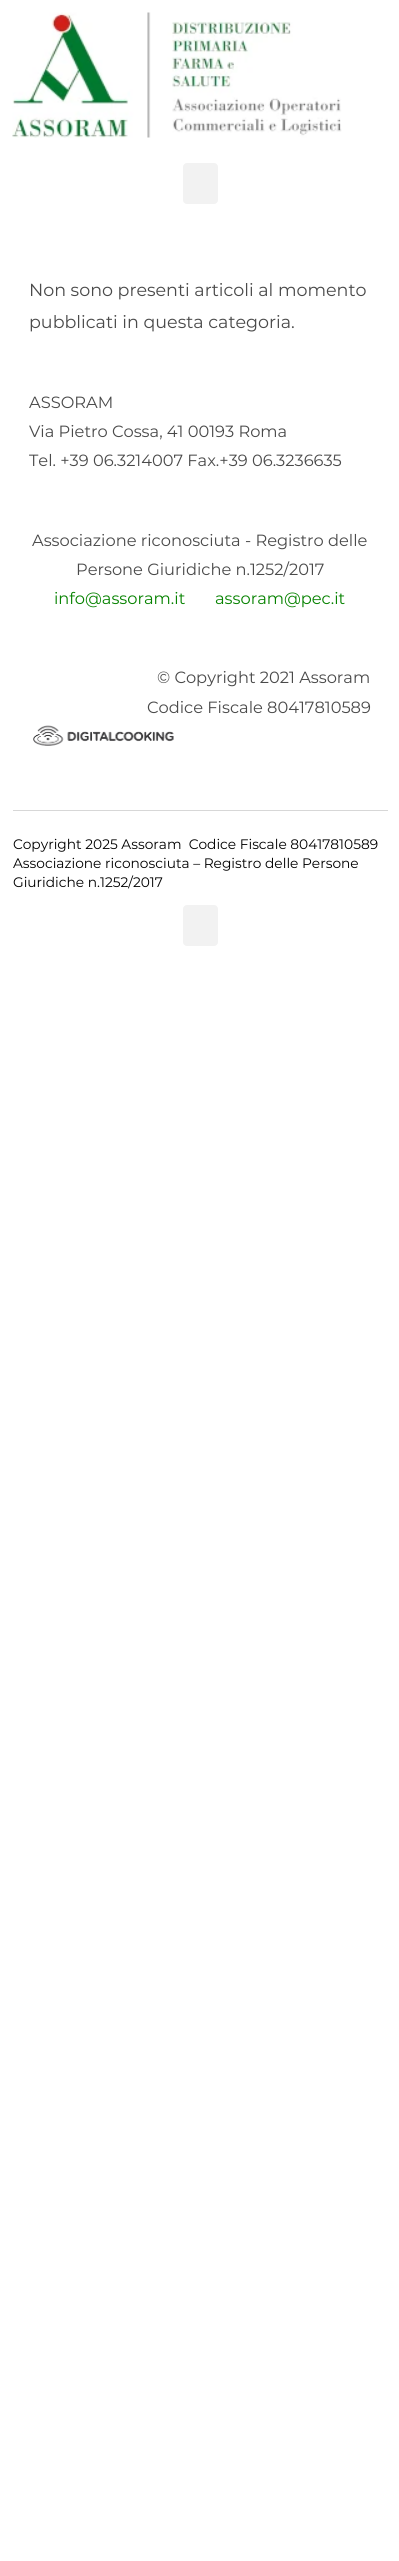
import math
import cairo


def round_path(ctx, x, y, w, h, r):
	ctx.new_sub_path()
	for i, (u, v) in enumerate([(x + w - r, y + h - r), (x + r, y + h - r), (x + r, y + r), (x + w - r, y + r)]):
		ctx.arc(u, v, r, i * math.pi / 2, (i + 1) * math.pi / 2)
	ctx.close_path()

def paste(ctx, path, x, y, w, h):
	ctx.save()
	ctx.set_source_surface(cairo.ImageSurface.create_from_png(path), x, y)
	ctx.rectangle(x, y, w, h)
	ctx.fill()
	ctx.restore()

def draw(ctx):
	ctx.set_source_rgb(1, 1, 1)
	ctx.paint()
	paste(ctx, 'media/1.png', 12, 12, 330, 126)
	ctx.set_source_rgb(0.949, 0.949, 0.949)
	round_path(ctx, 183, 163, 35, 41, 4)
	ctx.fill()
	ctx.select_font_face('Montserrat')
	ctx.set_font_size(17.5)
	ctx.set_source_rgb(0.29, 0.29, 0.29)
	ctx.move_to(29, 296)
	ctx.show_text('Non sono presenti articoli al momento')
	ctx.move_to(29, 328)
	ctx.show_text('pubblicati in questa categoria.')
	ctx.set_font_size(16.25)
	for x, y, s in [
		(29, 408, 'ASSORAM'),
		(29, 437, 'Via Pietro Cossa, 41 00193 Roma'),
		(29, 466, 'Tel. +39 06.3214007 Fax.+39 06.3236635'),
		(32, 546, 'Associazione riconosciuta - Registro delle'),
		(76, 575, 'Persone Giuridiche n.1252/2017'),
	]:
		ctx.move_to(x, y)
		ctx.show_text(s)
	ctx.set_source_rgb(0.024, 0.51, 0)
	ctx.move_to(54, 604)
	ctx.show_text('info@assoram.it')
	ctx.move_to(215, 604)
	ctx.show_text('assoram@pec.it')
	ctx.set_source_rgb(0.29, 0.29, 0.29)
	ctx.move_to(157, 683)
	ctx.show_text('© Copyright 2021 Assoram')
	ctx.move_to(147, 713)
	ctx.show_text('Codice Fiscale 80417810589')
	paste(ctx, 'media/2.png', 33, 725, 141, 21)
	ctx.set_source_rgb(0.843, 0.843, 0.843)
	ctx.rectangle(13, 810, 375, 1)
	ctx.fill()
	ctx.set_font_size(13.75)
	ctx.set_source_rgb(0, 0, 0)
	for x, y, s in [
		(13, 849, 'Copyright 2025 Assoram  Codice Fiscale 80417810589'),
		(13, 868, 'Associazione riconosciuta – Registro delle Persone'),
		(13, 887, 'Giuridiche n.1252/2017'),
	]:
		ctx.move_to(x, y)
		ctx.show_text(s)
	ctx.set_source_rgb(0.949, 0.949, 0.949)
	round_path(ctx, 183, 905, 35, 41, 4)
	ctx.fill()


surface = cairo.ImageSurface(cairo.FORMAT_RGB24, 399, 2561)
ctx = cairo.Context(surface)
options = cairo.FontOptions()
options.set_hint_metrics(cairo.HINT_METRICS_OFF)
options.set_hint_style(cairo.HINT_STYLE_NONE)
ctx.set_font_options(options)
ctx.set_miter_limit(4)
draw(ctx)
surface.write_to_png('image.png')
